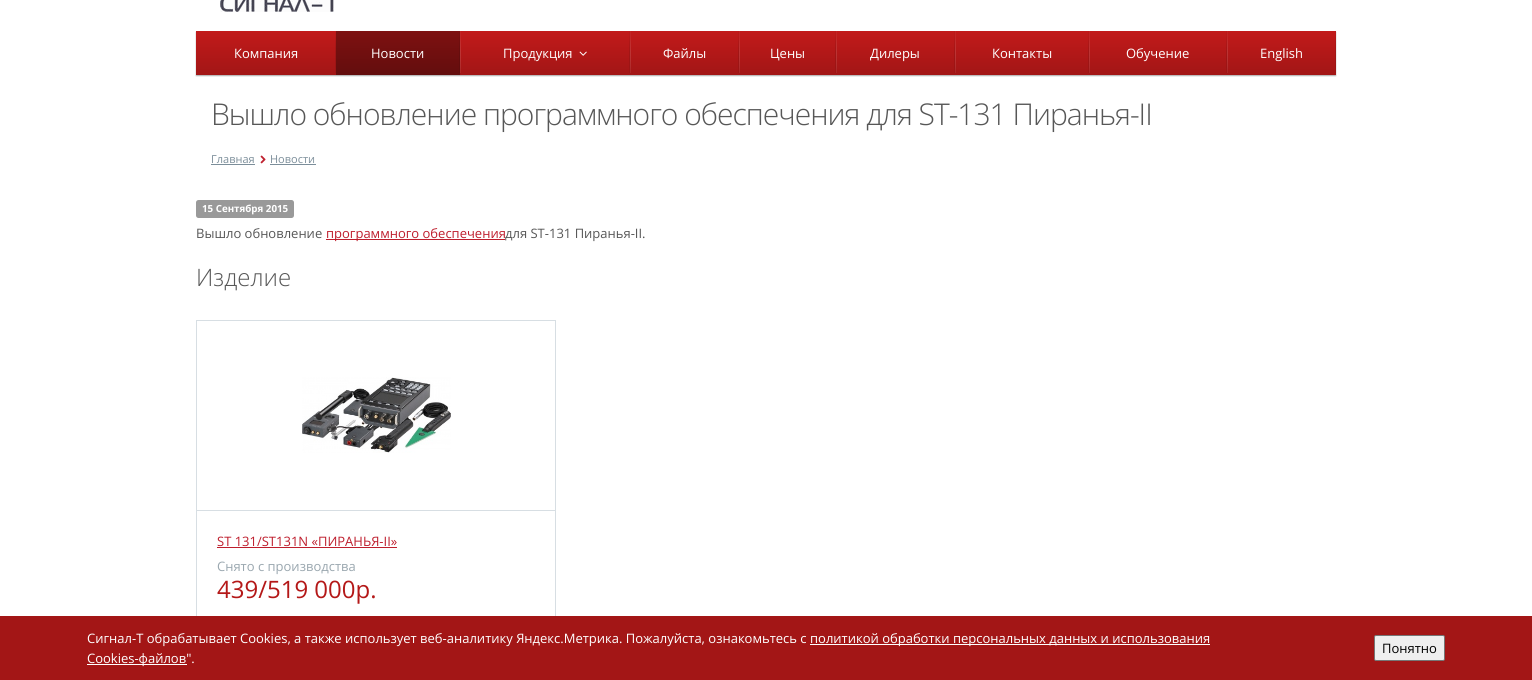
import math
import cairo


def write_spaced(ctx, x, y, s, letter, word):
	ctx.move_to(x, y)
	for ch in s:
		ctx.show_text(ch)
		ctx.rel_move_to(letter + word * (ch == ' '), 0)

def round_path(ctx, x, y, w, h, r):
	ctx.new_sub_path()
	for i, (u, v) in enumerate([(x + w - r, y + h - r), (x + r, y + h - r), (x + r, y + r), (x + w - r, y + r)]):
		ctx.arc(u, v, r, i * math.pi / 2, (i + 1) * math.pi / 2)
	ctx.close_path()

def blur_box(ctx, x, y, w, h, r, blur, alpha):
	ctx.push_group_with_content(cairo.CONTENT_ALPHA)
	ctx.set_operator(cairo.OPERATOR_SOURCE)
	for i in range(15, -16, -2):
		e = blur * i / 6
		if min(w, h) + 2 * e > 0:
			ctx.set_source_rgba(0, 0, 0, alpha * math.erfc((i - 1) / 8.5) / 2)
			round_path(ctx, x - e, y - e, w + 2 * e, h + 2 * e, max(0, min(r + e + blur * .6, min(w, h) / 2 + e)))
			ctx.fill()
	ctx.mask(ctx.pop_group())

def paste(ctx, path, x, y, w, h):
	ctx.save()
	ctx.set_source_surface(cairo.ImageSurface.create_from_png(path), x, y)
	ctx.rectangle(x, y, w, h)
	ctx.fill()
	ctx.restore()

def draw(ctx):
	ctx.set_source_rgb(1, 1, 1)
	ctx.paint()
	paste(ctx, 'media/1.png', 220, 0, 114, 12)
	ctx.set_source_rgb(0, 0, 0)
	blur_box(ctx, 196, 32, 1140, 44, 0, 0.5, 0.3)
	gradient = cairo.LinearGradient(766, 31, 766, 75)
	gradient.add_color_stop_rgba(0, 0.761, 0.102, 0.102, 1)
	gradient.add_color_stop_rgba(1, 0.635, 0.086, 0.086, 1)
	ctx.set_source(gradient)
	ctx.rectangle(196, 31, 1140, 44)
	ctx.fill()
	ctx.select_font_face('Open Sans')
	ctx.set_font_size(13)
	ctx.set_source_rgb(1, 1, 1)
	ctx.move_to(234, 58)
	ctx.show_text('Компания')
	paste(ctx, 'media/2.png', 335, 31, 1, 42)
	gradient = cairo.LinearGradient(398, 31, 398, 75)
	gradient.add_color_stop_rgba(0, 0.494, 0.067, 0.067, 1)
	gradient.add_color_stop_rgba(1, 0.388, 0.051, 0.051, 1)
	ctx.set_source(gradient)
	ctx.rectangle(336, 31, 124, 44)
	ctx.fill()
	ctx.set_source_rgb(1, 1, 1)
	ctx.move_to(371, 58)
	ctx.show_text('Новости')
	paste(ctx, 'media/3.png', 459, 31, 2, 42)
	ctx.move_to(503, 58)
	ctx.show_text('Продукция')
	paste(ctx, 'media/4.png', 579, 51, 8, 5)
	paste(ctx, 'media/5.png', 629, 31, 2, 42)
	ctx.move_to(663, 58)
	ctx.show_text('Файлы')
	paste(ctx, 'media/5.png', 738, 31, 2, 42)
	ctx.move_to(770, 58)
	ctx.show_text('Цены')
	paste(ctx, 'media/5.png', 835, 31, 2, 42)
	ctx.move_to(870, 58)
	ctx.show_text('Дилеры')
	paste(ctx, 'media/5.png', 954, 31, 2, 42)
	ctx.move_to(992, 58)
	ctx.show_text('Контакты')
	paste(ctx, 'media/5.png', 1088, 31, 2, 42)
	ctx.move_to(1126, 58)
	ctx.show_text('Обучение')
	paste(ctx, 'media/5.png', 1226, 31, 2, 42)
	ctx.move_to(1260, 58)
	ctx.show_text('English')
	paste(ctx, 'media/2.png', 1335, 31, 1, 42)
	ctx.select_font_face('Open Sans Light')
	ctx.set_font_size(30)
	ctx.set_source_rgb(0.341, 0.341, 0.341)
	write_spaced(ctx, 211, 125, 'Вышло обновление программного обеспечения для ST-131 Пиранья-II', -1, 0)
	ctx.select_font_face('Open Sans')
	ctx.set_font_size(11)
	ctx.set_source_rgb(0.486, 0.557, 0.604)
	ctx.move_to(211, 163)
	ctx.show_text('Главная')
	ctx.rectangle(211, 164, 44, 1)
	ctx.fill()
	paste(ctx, 'media/6.png', 260, 155, 6, 9)
	ctx.move_to(270, 163)
	ctx.show_text('Новости')
	ctx.rectangle(270, 164, 46, 1)
	ctx.fill()
	ctx.set_source_rgb(0.6, 0.6, 0.6)
	round_path(ctx, 196, 200, 98, 18, 2.5)
	ctx.fill()
	ctx.select_font_face('Open Sans', cairo.FONT_SLANT_NORMAL, cairo.FONT_WEIGHT_BOLD)
	ctx.set_font_size(9.75)
	ctx.set_source_rgb(1, 1, 1)
	ctx.move_to(202, 212)
	ctx.show_text('15 Сентября 2015')
	ctx.select_font_face('Open Sans')
	ctx.set_font_size(13)
	ctx.set_source_rgb(0.341, 0.341, 0.341)
	ctx.move_to(196, 238)
	ctx.show_text('Вышло обновление')
	ctx.set_source_rgb(0.745, 0.118, 0.176)
	ctx.rectangle(326, 239, 179, 1)
	ctx.fill()
	ctx.move_to(326, 238)
	ctx.show_text('программного обеспечения')
	ctx.set_source_rgb(0.341, 0.341, 0.341)
	ctx.move_to(505, 238)
	ctx.show_text('для ST-131 Пиранья-II.')
	ctx.select_font_face('Open Sans Light')
	ctx.set_font_size(24)
	ctx.move_to(196, 286)
	ctx.show_text('Изделие')
	ctx.rectangle(196.5, 320.5, 359, 303)
	ctx.set_source_rgb(0.843, 0.871, 0.89)
	ctx.set_line_width(1)
	ctx.stroke()
	ctx.rectangle(197, 510, 358, 1)
	ctx.fill()
	paste(ctx, 'media/7.png', 302, 377, 149, 76)
	ctx.select_font_face('Open Sans')
	ctx.set_font_size(13)
	ctx.set_source_rgb(0.745, 0.118, 0.176)
	ctx.move_to(217, 546)
	ctx.show_text('ST 131/ST131N «ПИРАНЬЯ-II»')
	ctx.rectangle(217, 547, 180, 1)
	ctx.fill()
	ctx.set_source_rgb(0.604, 0.655, 0.686)
	ctx.move_to(217, 571)
	ctx.show_text('Снято с производства')
	ctx.set_font_size(24)
	ctx.set_source_rgb(0.706, 0.094, 0.094)
	ctx.move_to(217, 598)
	ctx.show_text('439/519 000р.')
	ctx.set_source_rgb(0.639, 0.086, 0.086)
	ctx.rectangle(0, 616, 1532, 64)
	ctx.fill()
	ctx.set_font_size(13)
	ctx.set_source_rgb(1, 1, 1)
	ctx.move_to(87, 643)
	ctx.show_text('Сигнал-Т обрабатывает Cookies, а также использует веб-аналитику Яндекс.Метрика. Пожалуйста, ознакомьтесь с')
	ctx.rectangle(810, 644, 400, 1)
	ctx.fill()
	ctx.move_to(810, 643)
	ctx.show_text('политикой обработки персональных данных и использования')
	ctx.rectangle(87, 664, 100, 1)
	ctx.fill()
	ctx.move_to(87, 663)
	ctx.show_text('Cookies-файлов".')
	ctx.set_source_rgb(0.937, 0.937, 0.937)
	round_path(ctx, 1374.5, 635.5, 70, 25, 1.5)
	ctx.fill_preserve()
	ctx.set_source_rgb(0.463, 0.463, 0.463)
	ctx.stroke()
	ctx.set_source_rgb(0, 0, 0)
	ctx.move_to(1382, 653)
	ctx.show_text('Понятно')


surface = cairo.ImageSurface(cairo.FORMAT_RGB24, 1532, 680)
ctx = cairo.Context(surface)
options = cairo.FontOptions()
options.set_hint_metrics(cairo.HINT_METRICS_OFF)
options.set_hint_style(cairo.HINT_STYLE_NONE)
ctx.set_font_options(options)
ctx.set_miter_limit(4)
draw(ctx)
surface.write_to_png('image.png')
